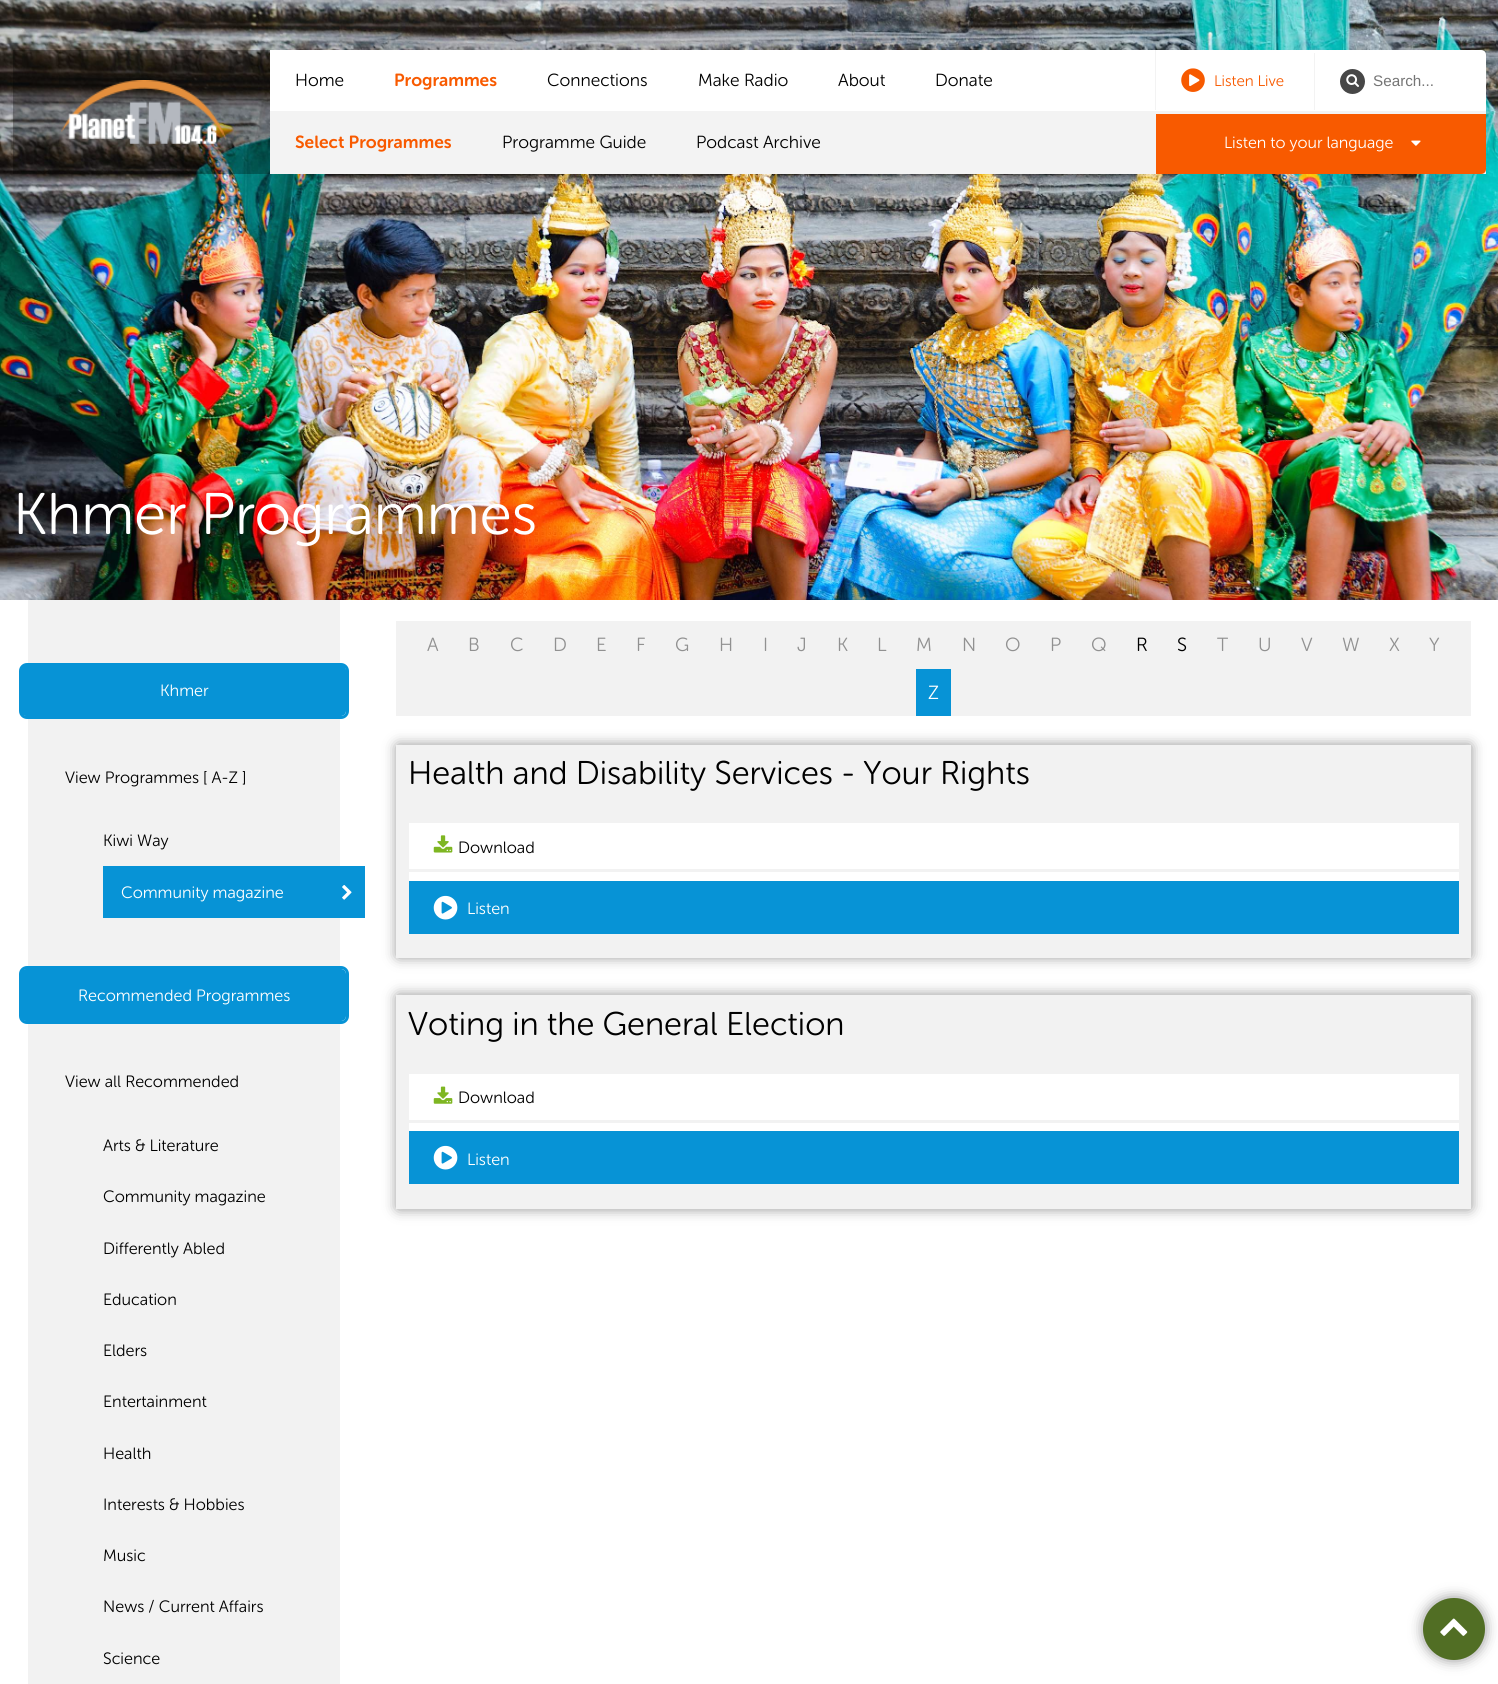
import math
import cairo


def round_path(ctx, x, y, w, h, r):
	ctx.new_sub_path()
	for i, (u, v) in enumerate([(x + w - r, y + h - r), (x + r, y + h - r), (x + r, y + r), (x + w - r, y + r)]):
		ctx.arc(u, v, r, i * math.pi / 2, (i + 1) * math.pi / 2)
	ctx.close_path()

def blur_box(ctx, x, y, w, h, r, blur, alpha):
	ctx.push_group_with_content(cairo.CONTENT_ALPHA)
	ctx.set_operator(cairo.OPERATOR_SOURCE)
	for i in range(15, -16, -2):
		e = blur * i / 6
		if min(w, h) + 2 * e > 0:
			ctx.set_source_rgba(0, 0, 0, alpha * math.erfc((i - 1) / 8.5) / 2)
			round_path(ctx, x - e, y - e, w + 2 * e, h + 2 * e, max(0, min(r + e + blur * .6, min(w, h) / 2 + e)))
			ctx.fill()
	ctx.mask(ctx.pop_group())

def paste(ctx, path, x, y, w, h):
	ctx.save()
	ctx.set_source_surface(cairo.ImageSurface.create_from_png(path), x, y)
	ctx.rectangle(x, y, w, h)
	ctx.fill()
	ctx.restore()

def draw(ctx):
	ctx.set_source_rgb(1, 1, 1)
	ctx.paint()
	paste(ctx, 'media/5.png', 0, 0, 1498, 600)
	ctx.set_source_rgba(0, 0, 0, 0.3)
	ctx.rectangle(13, 50, 257, 124)
	ctx.fill()
	paste(ctx, 'media/1.png', 61, 80, 166, 64)
	ctx.set_source_rgb(1, 1, 1)
	ctx.new_path()
	ctx.move_to(270, 50)
	ctx.line_to(1481, 50)
	ctx.curve_to(1484, 50, 1486, 52, 1486, 55)
	ctx.line_to(1486, 114)
	ctx.line_to(270, 114)
	ctx.close_path()
	ctx.fill()
	ctx.select_font_face('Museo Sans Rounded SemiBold')
	ctx.set_font_size(17.5)
	ctx.set_source_rgb(0.969, 0.353, 0)
	ctx.move_to(394, 86)
	ctx.show_text('Programmes')
	ctx.set_source_rgb(0.953, 0.953, 0.953)
	ctx.rectangle(270, 111, 1216, 63)
	ctx.fill()
	ctx.set_source_rgb(0.969, 0.353, 0)
	ctx.move_to(295, 148)
	ctx.show_text('Select Programmes')
	ctx.select_font_face('Museo Sans Rounded Light')
	ctx.set_source_rgb(0, 0, 0)
	for x, y, s in [
		(502, 148, 'Programme Guide'),
		(696, 148, 'Podcast Archive'),
		(295, 86, 'Home'),
		(547, 86, 'Connections'),
		(698, 86, 'Make Radio'),
		(838, 86, 'About'),
		(935, 86, 'Donate'),
	]:
		ctx.move_to(x, y)
		ctx.show_text(s)
	ctx.set_source_rgb(0.953, 0.953, 0.953)
	ctx.rectangle(1155, 50, 1, 60)
	ctx.fill()
	paste(ctx, 'media/2.png', 1181, 68, 24, 24)
	ctx.set_font_size(15.25)
	ctx.set_source_rgb(0.969, 0.353, 0)
	ctx.move_to(1214, 86)
	ctx.show_text('Listen Live')
	ctx.set_source_rgb(0.953, 0.953, 0.953)
	ctx.rectangle(1314, 53, 1, 57)
	ctx.fill()
	ctx.set_source_rgb(0.278, 0.278, 0.278)
	ctx.arc(1352.5, 81.5, 12.5, 0, 2 * math.pi)
	ctx.fill()
	paste(ctx, 'media/3.png', 1346, 74, 13, 13)
	ctx.select_font_face('Liberation Sans')
	ctx.set_source_rgb(0.459, 0.459, 0.459)
	ctx.move_to(1373, 86)
	ctx.show_text('Search...')
	ctx.set_source_rgb(0.969, 0.353, 0)
	ctx.new_path()
	ctx.move_to(1156, 114)
	ctx.line_to(1486, 114)
	ctx.line_to(1486, 169)
	ctx.curve_to(1486, 172, 1484, 174, 1481, 174)
	ctx.line_to(1156, 174)
	ctx.close_path()
	ctx.fill()
	ctx.select_font_face('Museo Sans Rounded Light')
	ctx.set_font_size(16.25)
	ctx.set_source_rgb(1, 1, 1)
	ctx.move_to(1224, 148)
	ctx.show_text('Listen to your language')
	paste(ctx, 'media/4.png', 1411, 140, 10, 6)
	ctx.set_font_size(58.5)
	ctx.move_to(13, 534)
	ctx.show_text('Khmer Programmes')
	ctx.set_source_rgb(0.949, 0.949, 0.949)
	ctx.rectangle(28, 600, 312, 1084)
	ctx.fill()
	round_path(ctx, 20.5, 664.5, 327, 53, 6.5)
	ctx.set_source_rgb(0.031, 0.576, 0.839)
	ctx.set_line_width(3)
	ctx.stroke()
	round_path(ctx, 21, 665, 325, 51, 5)
	ctx.fill()
	ctx.set_font_size(16.4)
	ctx.set_source_rgb(1, 1, 1)
	ctx.move_to(160, 696)
	ctx.show_text('Khmer')
	ctx.set_source_rgb(0, 0, 0)
	ctx.move_to(65, 783)
	ctx.show_text('View Programmes [ A-Z ]')
	ctx.move_to(103, 846)
	ctx.show_text('Kiwi Way')
	ctx.set_source_rgb(0.031, 0.576, 0.839)
	ctx.rectangle(103, 866, 262, 52)
	ctx.fill()
	ctx.set_source_rgb(1, 1, 1)
	ctx.move_to(121, 898)
	ctx.show_text('Community magazine')
	paste(ctx, 'media/6.png', 342, 885, 10, 15)
	round_path(ctx, 20.5, 967.5, 327, 55, 6.5)
	ctx.set_source_rgb(0.031, 0.576, 0.839)
	ctx.stroke()
	round_path(ctx, 21, 969, 325, 52, 5)
	ctx.fill()
	ctx.set_source_rgb(1, 1, 1)
	ctx.move_to(78, 1001)
	ctx.show_text('Recommended Programmes')
	ctx.set_source_rgb(0, 0, 0)
	for x, y, s in [
		(65, 1087, 'View all Recommended'),
		(103, 1151, 'Arts & Literature'),
		(103, 1202, 'Community magazine'),
		(103, 1254, 'Differently Abled'),
		(103, 1305, 'Education'),
		(103, 1356, 'Elders'),
		(103, 1407, 'Entertainment'),
		(103, 1459, 'Health'),
		(103, 1510, 'Interests & Hobbies'),
		(103, 1561, 'Music'),
		(103, 1612, 'News / Current Affairs'),
		(103, 1664, 'Science'),
	]:
		ctx.move_to(x, y)
		ctx.show_text(s)
	ctx.set_source_rgb(0.949, 0.949, 0.949)
	ctx.rectangle(396, 621, 1075, 95)
	ctx.fill()
	ctx.set_font_size(19)
	ctx.set_source_rgb(0.569, 0.569, 0.569)
	for x, y, s in [
		(427, 651, 'A'),
		(468, 651, 'B'),
		(510, 651, 'C'),
		(553, 651, 'D'),
		(596, 651, 'E'),
		(636, 651, 'F'),
		(675, 651, 'G'),
		(719, 651, 'H'),
		(763, 651, 'I'),
		(797, 651, 'J'),
		(837, 651, 'K'),
		(877, 651, 'L'),
		(916, 651, 'M'),
		(962, 651, 'N'),
		(1005, 651, 'O'),
		(1050, 651, 'P'),
		(1091, 651, 'Q'),
	]:
		ctx.move_to(x, y)
		ctx.show_text(s)
	ctx.set_source_rgb(0, 0, 0)
	ctx.move_to(1136, 651)
	ctx.show_text('R')
	ctx.move_to(1177, 651)
	ctx.show_text('S')
	ctx.set_source_rgb(0.569, 0.569, 0.569)
	for x, y, s in [
		(1217, 651, 'T'),
		(1258, 651, 'U'),
		(1301, 651, 'V'),
		(1342, 651, 'W'),
		(1389, 651, 'X'),
		(1429, 651, 'Y'),
	]:
		ctx.move_to(x, y)
		ctx.show_text(s)
	ctx.set_source_rgb(0.031, 0.576, 0.839)
	ctx.rectangle(916, 669, 35, 47)
	ctx.fill()
	ctx.set_source_rgb(1, 1, 1)
	ctx.move_to(928, 699)
	ctx.show_text('Z')
	ctx.set_source_rgb(0, 0, 0)
	blur_box(ctx, 398, 746, 1072, 210, 0, 7, 0.5)
	ctx.set_source_rgb(0.949, 0.949, 0.949)
	ctx.rectangle(396, 745, 1075, 213)
	ctx.fill()
	ctx.set_font_size(32.8)
	ctx.set_source_rgb(0, 0, 0)
	ctx.move_to(408, 784)
	ctx.show_text('Health and Disability Services - Your Rights')
	ctx.set_source_rgb(1, 1, 1)
	ctx.rectangle(409, 823, 1050, 58)
	ctx.fill()
	ctx.set_source_rgb(0.949, 0.949, 0.949)
	ctx.rectangle(409, 869, 1050, 3)
	ctx.fill()
	paste(ctx, 'media/7.png', 433, 835, 20, 18)
	ctx.set_font_size(16.4)
	ctx.set_source_rgb(0, 0, 0)
	ctx.move_to(458, 853)
	ctx.show_text('Download')
	ctx.set_source_rgb(0.031, 0.576, 0.839)
	ctx.rectangle(409, 881, 1050, 53)
	ctx.fill()
	paste(ctx, 'media/8.png', 433, 895, 25, 25)
	ctx.set_source_rgb(1, 1, 1)
	ctx.move_to(467, 914)
	ctx.show_text('Listen')
	ctx.set_source_rgb(0, 0, 0)
	blur_box(ctx, 398, 996, 1072, 212, 0, 7, 0.5)
	ctx.set_source_rgb(0.949, 0.949, 0.949)
	ctx.rectangle(396, 995, 1075, 214)
	ctx.fill()
	ctx.set_font_size(32.8)
	ctx.set_source_rgb(0, 0, 0)
	ctx.move_to(408, 1035)
	ctx.show_text('Voting in the General Election')
	ctx.set_source_rgb(1, 1, 1)
	ctx.rectangle(409, 1074, 1050, 57)
	ctx.fill()
	ctx.set_source_rgb(0.949, 0.949, 0.949)
	ctx.rectangle(409, 1120, 1050, 3)
	ctx.fill()
	paste(ctx, 'media/9.png', 433, 1086, 20, 18)
	ctx.set_font_size(16.4)
	ctx.set_source_rgb(0, 0, 0)
	ctx.move_to(458, 1103)
	ctx.show_text('Download')
	ctx.set_source_rgb(0.031, 0.576, 0.839)
	ctx.rectangle(409, 1131, 1050, 53)
	ctx.fill()
	paste(ctx, 'media/8.png', 433, 1145, 25, 25)
	ctx.set_source_rgb(1, 1, 1)
	ctx.move_to(467, 1165)
	ctx.show_text('Listen')
	ctx.set_source_rgb(0, 0, 0)
	blur_box(ctx, 1424, 1599, 60, 60, 30, 7, 0.5)
	ctx.set_source_rgb(0.318, 0.431, 0.141)
	ctx.arc(1454, 1629, 31, 0, 2 * math.pi)
	ctx.fill()
	paste(ctx, 'media/10.png', 1440, 1618, 28, 18)


surface = cairo.ImageSurface(cairo.FORMAT_RGB24, 1498, 1684)
ctx = cairo.Context(surface)
options = cairo.FontOptions()
options.set_hint_metrics(cairo.HINT_METRICS_OFF)
options.set_hint_style(cairo.HINT_STYLE_NONE)
ctx.set_font_options(options)
ctx.set_miter_limit(4)
draw(ctx)
surface.write_to_png('image.png')
